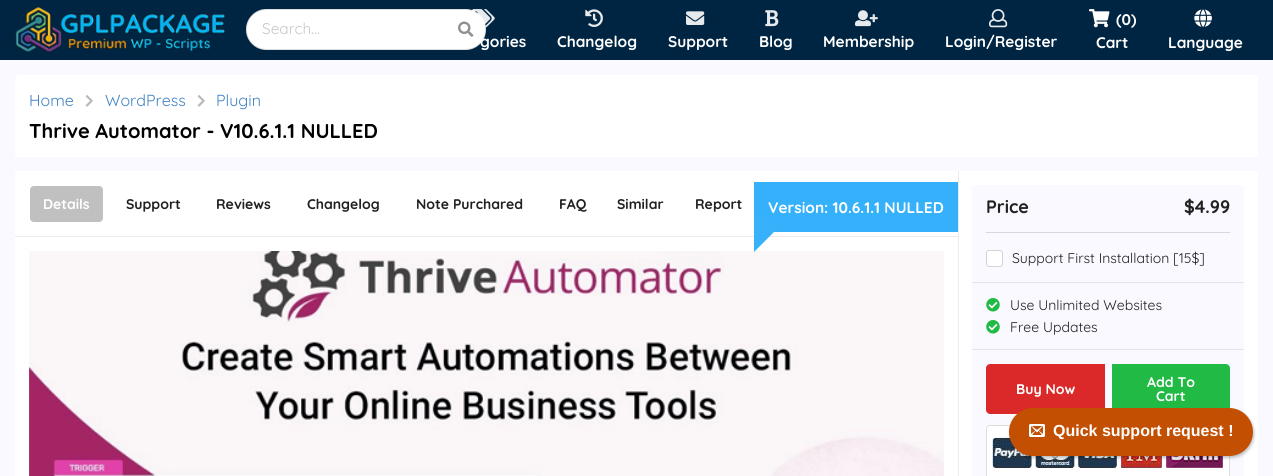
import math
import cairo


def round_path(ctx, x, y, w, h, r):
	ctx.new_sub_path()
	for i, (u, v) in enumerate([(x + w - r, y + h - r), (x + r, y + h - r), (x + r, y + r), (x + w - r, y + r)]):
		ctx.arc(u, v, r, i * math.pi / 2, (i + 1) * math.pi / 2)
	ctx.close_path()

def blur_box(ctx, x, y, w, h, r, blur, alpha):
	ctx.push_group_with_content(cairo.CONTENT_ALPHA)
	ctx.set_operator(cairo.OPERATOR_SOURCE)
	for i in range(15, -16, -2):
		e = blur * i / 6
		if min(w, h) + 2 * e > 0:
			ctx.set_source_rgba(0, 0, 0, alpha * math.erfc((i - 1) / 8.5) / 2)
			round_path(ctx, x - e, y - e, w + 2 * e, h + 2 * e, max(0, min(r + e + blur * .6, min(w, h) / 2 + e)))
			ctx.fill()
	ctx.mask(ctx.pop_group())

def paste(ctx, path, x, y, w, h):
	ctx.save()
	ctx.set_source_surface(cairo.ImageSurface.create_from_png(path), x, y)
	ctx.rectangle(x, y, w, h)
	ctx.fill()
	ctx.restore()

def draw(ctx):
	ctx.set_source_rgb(0.973, 0.973, 1)
	ctx.paint()
	ctx.set_source_rgb(0, 0.145, 0.259)
	ctx.rectangle(0, 0, 1273, 60)
	ctx.fill()
	paste(ctx, 'media/1.png', 15, 6, 211, 47)
	ctx.set_source_rgb(1, 1, 1)
	round_path(ctx, 246, 9, 240, 41, 20.5)
	ctx.fill()
	round_path(ctx, 246.5, 9.5, 239, 40, 20)
	ctx.set_source_rgba(0.133, 0.141, 0.149, 0.15)
	ctx.set_line_width(1)
	ctx.stroke()
	ctx.select_font_face('Quicksand')
	ctx.set_font_size(15.4)
	ctx.set_source_rgb(0.78, 0.78, 0.78)
	ctx.move_to(262, 34)
	ctx.show_text('Search...')
	paste(ctx, 'media/2.png', 458, 21, 16, 16)
	paste(ctx, 'media/3.png', 472, 9, 23, 19)
	ctx.select_font_face('Quicksand', cairo.FONT_SLANT_NORMAL, cairo.FONT_WEIGHT_BOLD)
	ctx.set_source_rgb(1, 1, 1)
	ctx.move_to(480, 47)
	ctx.show_text('gories')
	paste(ctx, 'media/4.png', 585, 9, 18, 18)
	ctx.move_to(557, 47)
	ctx.show_text('Changelog')
	paste(ctx, 'media/5.png', 686, 11, 19, 14)
	ctx.move_to(668, 47)
	ctx.show_text('Support')
	paste(ctx, 'media/6.png', 765, 10, 14, 17)
	ctx.move_to(759, 47)
	ctx.show_text('Blog')
	paste(ctx, 'media/7.png', 855, 10, 23, 17)
	ctx.move_to(823, 47)
	ctx.show_text('Membership')
	paste(ctx, 'media/8.png', 989, 9, 19, 19)
	ctx.move_to(945, 47)
	ctx.show_text('Login/Register')
	paste(ctx, 'media/9.png', 1089, 9, 21, 19)
	ctx.move_to(1116, 25)
	ctx.show_text('(0)')
	ctx.move_to(1096, 48)
	ctx.show_text('Cart')
	paste(ctx, 'media/10.png', 1194, 9, 18, 18)
	ctx.move_to(1168, 48)
	ctx.show_text('Language')
	ctx.new_path()
	ctx.move_to(19, 75)
	ctx.line_to(1254, 75)
	ctx.curve_to(1256, 75, 1258, 77, 1258, 79)
	ctx.line_to(1258, 171)
	ctx.line_to(15, 171)
	ctx.line_to(15, 79)
	ctx.curve_to(15, 77, 17, 75, 19, 75)
	ctx.close_path()
	ctx.fill()
	ctx.set_source_rgb(0.973, 0.973, 1)
	ctx.rectangle(15, 157, 1243, 14)
	ctx.fill()
	ctx.select_font_face('Quicksand')
	ctx.set_font_size(16)
	ctx.set_source_rgb(0.255, 0.514, 0.769)
	ctx.move_to(29, 106)
	ctx.show_text('Home')
	paste(ctx, 'media/11.png', 85, 95, 8, 12)
	ctx.move_to(105, 106)
	ctx.show_text('WordPress')
	paste(ctx, 'media/11.png', 197, 95, 8, 12)
	ctx.move_to(216, 106)
	ctx.show_text('Plugin')
	ctx.select_font_face('Quicksand', cairo.FONT_SLANT_NORMAL, cairo.FONT_WEIGHT_BOLD)
	ctx.set_font_size(20)
	ctx.set_source_rgb(0, 0, 0)
	ctx.move_to(29, 138)
	ctx.show_text('Thrive Automator - V10.6.1.1 NULLED')
	ctx.set_source_rgb(1, 1, 1)
	ctx.rectangle(15, 171, 943, 305)
	ctx.fill()
	ctx.set_source_rgb(0.753, 0.753, 0.753)
	round_path(ctx, 30, 186, 73, 36, 4)
	ctx.fill()
	ctx.set_font_size(14)
	ctx.set_source_rgb(1, 1, 1)
	ctx.move_to(43, 209)
	ctx.show_text('Details')
	ctx.set_source_rgb(0.129, 0.129, 0.129)
	for x, y, s in [
		(126, 209, 'Support'),
		(216, 209, 'Reviews'),
		(307, 209, 'Changelog'),
		(416, 209, 'Note Purchared'),
		(559, 209, 'FAQ'),
		(617, 209, 'Similar'),
		(695, 209, 'Report'),
	]:
		ctx.move_to(x, y)
		ctx.show_text(s)
	ctx.set_source_rgb(0.918, 0.918, 0.918)
	ctx.rectangle(15, 236, 943, 1)
	ctx.fill()
	ctx.set_source_rgb(0.208, 0.69, 0.98)
	ctx.rectangle(754, 182, 204, 50)
	ctx.fill()
	ctx.set_font_size(15.4)
	ctx.set_source_rgb(1, 1, 1)
	ctx.move_to(768, 213)
	ctx.show_text('Version: 10.6.1.1 NULLED')
	paste(ctx, 'media/12.png', 29, 251, 915, 225)
	ctx.set_source_rgb(0.216, 0.694, 0.98)
	ctx.new_path()
	ctx.move_to(754, 252)
	ctx.line_to(754, 208)
	ctx.line_to(776, 230)
	ctx.close_path()
	ctx.fill()
	ctx.set_source_rgb(0.925, 0.925, 0.925)
	ctx.rectangle(958, 171, 1, 305)
	ctx.fill()
	ctx.set_source_rgb(1, 1, 1)
	ctx.rectangle(959, 171, 299, 305)
	ctx.fill()
	ctx.set_source_rgb(0.973, 0.973, 1)
	round_path(ctx, 972, 185, 272, 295, 4)
	ctx.fill()
	ctx.set_font_size(18)
	ctx.set_source_rgb(0.129, 0.129, 0.129)
	ctx.move_to(986, 213)
	ctx.show_text('Price')
	ctx.move_to(1184, 213)
	ctx.show_text('$4.99')
	ctx.set_source_rgb(0.847, 0.847, 0.871)
	ctx.rectangle(986, 232, 244, 1)
	ctx.fill()
	ctx.set_source_rgb(1, 1, 1)
	round_path(ctx, 986.5, 250.5, 16, 16, 2.5)
	ctx.fill_preserve()
	ctx.set_source_rgb(0.831, 0.831, 0.835)
	ctx.stroke()
	ctx.select_font_face('Quicksand')
	ctx.set_font_size(14)
	ctx.set_source_rgb(0.129, 0.129, 0.129)
	ctx.move_to(1012, 263)
	ctx.show_text('Support First Installation [15$]')
	ctx.set_source_rgb(0.89, 0.89, 0.914)
	ctx.rectangle(972, 282, 272, 1)
	ctx.fill()
	paste(ctx, 'media/13.png', 986, 298, 14, 14)
	ctx.set_source_rgb(0.129, 0.129, 0.129)
	ctx.move_to(1010, 310)
	ctx.show_text('Use Unlimited Websites')
	paste(ctx, 'media/13.png', 986, 320, 14, 14)
	ctx.move_to(1010, 332)
	ctx.show_text('Free Updates')
	ctx.set_source_rgb(0.89, 0.89, 0.914)
	ctx.rectangle(972, 349, 272, 1)
	ctx.fill()
	ctx.set_source_rgb(0.859, 0.157, 0.157)
	ctx.new_path()
	ctx.move_to(990, 364)
	ctx.line_to(1105, 364)
	ctx.line_to(1105, 414)
	ctx.line_to(990, 414)
	ctx.curve_to(988, 414, 986, 412, 986, 410)
	ctx.line_to(986, 368)
	ctx.curve_to(986, 366, 988, 364, 990, 364)
	ctx.close_path()
	ctx.fill()
	ctx.select_font_face('Quicksand', cairo.FONT_SLANT_NORMAL, cairo.FONT_WEIGHT_BOLD)
	ctx.set_source_rgb(1, 1, 1)
	ctx.move_to(1016, 394)
	ctx.show_text('Buy Now')
	ctx.set_source_rgb(0.129, 0.729, 0.271)
	ctx.new_path()
	ctx.move_to(1112, 364)
	ctx.line_to(1226, 364)
	ctx.curve_to(1228, 364, 1230, 366, 1230, 368)
	ctx.line_to(1230, 410)
	ctx.curve_to(1230, 412, 1228, 414, 1226, 414)
	ctx.line_to(1112, 414)
	ctx.close_path()
	ctx.fill()
	ctx.set_source_rgb(1, 1, 1)
	ctx.move_to(1147, 387)
	ctx.show_text('Add To')
	ctx.move_to(1156, 401)
	ctx.show_text('Cart')
	round_path(ctx, 986.5, 425.5, 243, 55, 3.5)
	ctx.fill_preserve()
	ctx.set_source_rgb(0.867, 0.867, 0.867)
	ctx.stroke()
	paste(ctx, 'media/14.png', 992, 437, 231, 31)
	ctx.set_source_rgb(0, 0, 0)
	blur_box(ctx, 1010, 410, 244, 48, 24, 1.5, 0.25)
	ctx.set_source_rgb(0.761, 0.31, 0.008)
	round_path(ctx, 1009, 408, 244, 48, 24)
	ctx.fill()
	paste(ctx, 'media/15.png', 1029, 424, 16, 13)
	ctx.select_font_face('Liberation Sans', cairo.FONT_SLANT_NORMAL, cairo.FONT_WEIGHT_BOLD)
	ctx.set_font_size(16)
	ctx.set_source_rgb(1, 1, 1)
	ctx.move_to(1053, 436)
	ctx.show_text('Quick support request !')


surface = cairo.ImageSurface(cairo.FORMAT_RGB24, 1273, 476)
ctx = cairo.Context(surface)
options = cairo.FontOptions()
options.set_hint_metrics(cairo.HINT_METRICS_OFF)
options.set_hint_style(cairo.HINT_STYLE_NONE)
ctx.set_font_options(options)
ctx.set_miter_limit(4)
draw(ctx)
surface.write_to_png('image.png')
